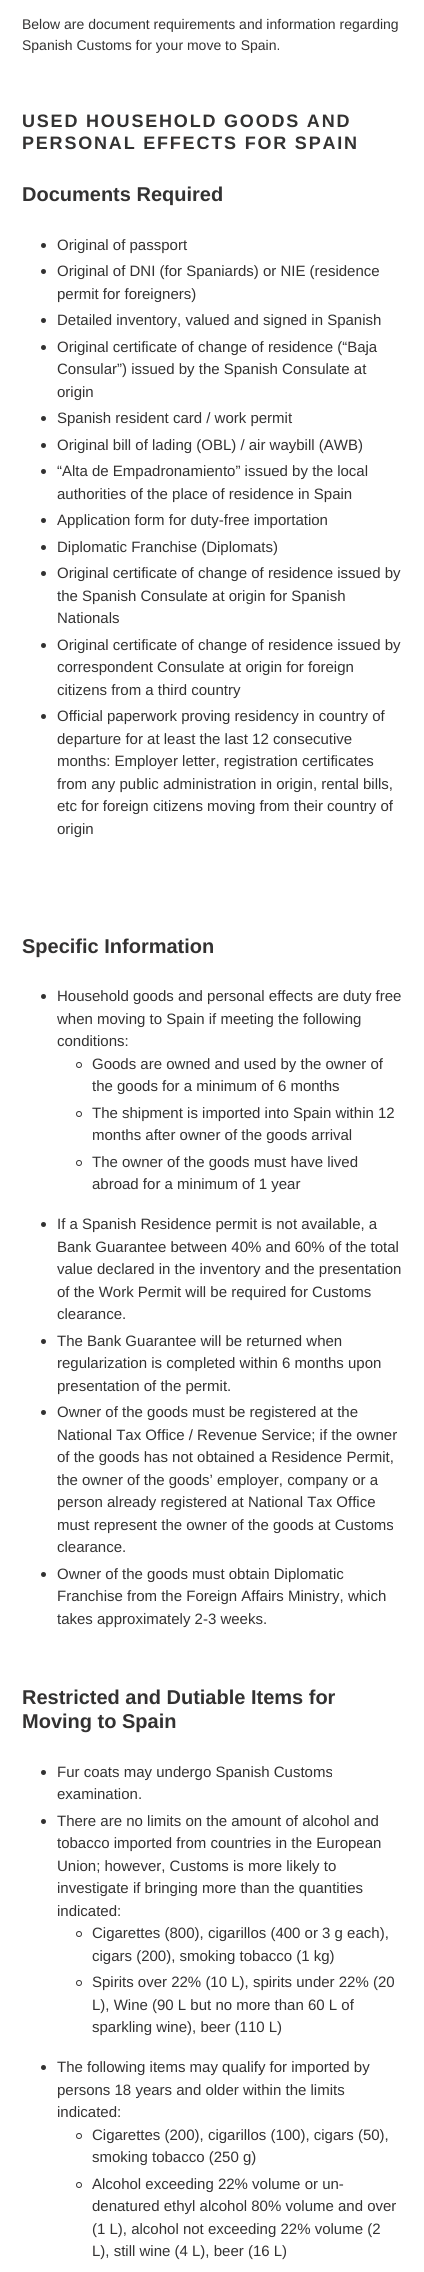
import math
import cairo


def write_spaced(ctx, x, y, s, letter, word):
	ctx.move_to(x, y)
	for ch in s:
		ctx.show_text(ch)
		ctx.rel_move_to(letter + word * (ch == ' '), 0)

def draw(ctx):
	ctx.set_source_rgb(1, 1, 1)
	ctx.paint()
	ctx.select_font_face('Liberation Sans')
	ctx.set_font_size(14)
	ctx.set_source_rgb(0.2, 0.196, 0.196)
	ctx.move_to(22, 29)
	ctx.show_text('Below are document requirements and information regarding')
	ctx.move_to(22, 50)
	ctx.show_text('Spanish Customs for your move to Spain.')
	ctx.select_font_face('Liberation Sans', cairo.FONT_SLANT_NORMAL, cairo.FONT_WEIGHT_BOLD)
	ctx.set_font_size(18)
	write_spaced(ctx, 22, 127, 'USED HOUSEHOLD GOODS AND', 1.8, 0)
	write_spaced(ctx, 22, 149, 'PERSONAL EFFECTS FOR SPAIN', 1.8, 0)
	ctx.set_font_size(20)
	ctx.move_to(22, 201)
	ctx.show_text('Documents Required')
	ctx.new_path()
	ctx.arc(43.5, 245.5, 2.5, 0, 2 * math.pi)
	ctx.fill()
	ctx.select_font_face('Liberation Sans')
	ctx.set_font_size(15)
	ctx.move_to(57, 250)
	ctx.show_text('Original of passport')
	ctx.new_path()
	ctx.arc(43.5, 271.5, 2.5, 0, 2 * math.pi)
	ctx.fill()
	ctx.move_to(57, 276)
	ctx.show_text('Original of DNI (for Spaniards) or NIE (residence')
	ctx.move_to(57, 299)
	ctx.show_text('permit for foreigners)')
	ctx.new_path()
	ctx.arc(43.5, 320.5, 2.5, 0, 2 * math.pi)
	ctx.fill()
	ctx.move_to(57, 325)
	ctx.show_text('Detailed inventory, valued and signed in Spanish')
	ctx.new_path()
	ctx.arc(43.5, 347.5, 2.5, 0, 2 * math.pi)
	ctx.fill()
	for x, y, s in [
		(57, 352, 'Original certificate of change of residence (“Baja'),
		(57, 374, 'Consular”) issued by the Spanish Consulate at'),
		(57, 397, 'origin'),
	]:
		ctx.move_to(x, y)
		ctx.show_text(s)
	ctx.new_path()
	ctx.arc(43.5, 418.5, 2.5, 0, 2 * math.pi)
	ctx.fill()
	ctx.move_to(57, 423)
	ctx.show_text('Spanish resident card / work permit')
	ctx.new_path()
	ctx.arc(43.5, 445.5, 2.5, 0, 2 * math.pi)
	ctx.fill()
	ctx.move_to(57, 450)
	ctx.show_text('Original bill of lading (OBL) / air waybill (AWB)')
	ctx.new_path()
	ctx.arc(43.5, 471.5, 2.5, 0, 2 * math.pi)
	ctx.fill()
	ctx.move_to(57, 476)
	ctx.show_text('“Alta de Empadronamiento” issued by the local')
	ctx.move_to(57, 499)
	ctx.show_text('authorities of the place of residence in Spain')
	ctx.new_path()
	ctx.arc(43.5, 520.5, 2.5, 0, 2 * math.pi)
	ctx.fill()
	ctx.move_to(57, 525)
	ctx.show_text('Application form for duty-free importation')
	ctx.new_path()
	ctx.arc(43.5, 547.5, 2.5, 0, 2 * math.pi)
	ctx.fill()
	ctx.move_to(57, 552)
	ctx.show_text('Diplomatic Franchise (Diplomats)')
	ctx.new_path()
	ctx.arc(43.5, 573.5, 2.5, 0, 2 * math.pi)
	ctx.fill()
	for x, y, s in [
		(57, 578, 'Original certificate of change of residence issued by'),
		(57, 601, 'the Spanish Consulate at origin for Spanish'),
		(57, 623, 'Nationals'),
	]:
		ctx.move_to(x, y)
		ctx.show_text(s)
	ctx.new_path()
	ctx.arc(43.5, 645.5, 2.5, 0, 2 * math.pi)
	ctx.fill()
	for x, y, s in [
		(57, 650, 'Original certificate of change of residence issued by'),
		(57, 672, 'correspondent Consulate at origin for foreign'),
		(57, 695, 'citizens from a third country'),
	]:
		ctx.move_to(x, y)
		ctx.show_text(s)
	ctx.new_path()
	ctx.arc(43.5, 716.5, 2.5, 0, 2 * math.pi)
	ctx.fill()
	for x, y, s in [
		(57, 721, 'Official paperwork proving residency in country of'),
		(57, 744, 'departure for at least the last 12 consecutive'),
		(57, 766, 'months: Employer letter, registration certificates'),
		(57, 789, 'from any public administration in origin, rental bills,'),
		(57, 811, 'etc for foreign citizens moving from their country of'),
		(57, 834, 'origin'),
	]:
		ctx.move_to(x, y)
		ctx.show_text(s)
	ctx.select_font_face('Liberation Sans', cairo.FONT_SLANT_NORMAL, cairo.FONT_WEIGHT_BOLD)
	ctx.set_font_size(20)
	ctx.move_to(22, 953)
	ctx.show_text('Specific Information')
	ctx.new_path()
	ctx.arc(43.5, 996.5, 2.5, 0, 2 * math.pi)
	ctx.fill()
	ctx.select_font_face('Liberation Sans')
	ctx.set_font_size(15)
	for x, y, s in [
		(57, 1001, 'Household goods and personal effects are duty free'),
		(57, 1024, 'when moving to Spain if meeting the following'),
		(57, 1046, 'conditions:'),
	]:
		ctx.move_to(x, y)
		ctx.show_text(s)
	ctx.new_path()
	ctx.arc(79, 1065, 2.5, 0, 2 * math.pi)
	ctx.set_line_width(1)
	ctx.stroke()
	ctx.move_to(92, 1069)
	ctx.show_text('Goods are owned and used by the owner of')
	ctx.move_to(92, 1091)
	ctx.show_text('the goods for a minimum of 6 months')
	ctx.new_path()
	ctx.arc(79, 1114, 2.5, 0, 2 * math.pi)
	ctx.stroke()
	ctx.move_to(92, 1118)
	ctx.show_text('The shipment is imported into Spain within 12')
	ctx.move_to(92, 1140)
	ctx.show_text('months after owner of the goods arrival')
	ctx.new_path()
	ctx.arc(79, 1163, 2.5, 0, 2 * math.pi)
	ctx.stroke()
	ctx.move_to(92, 1167)
	ctx.show_text('The owner of the goods must have lived')
	ctx.move_to(92, 1189)
	ctx.show_text('abroad for a minimum of 1 year')
	ctx.new_path()
	ctx.arc(43.5, 1224.5, 2.5, 0, 2 * math.pi)
	ctx.fill()
	for x, y, s in [
		(57, 1229, 'If a Spanish Residence permit is not available, a'),
		(57, 1252, 'Bank Guarantee between 40% and 60% of the total'),
		(57, 1274, 'value declared in the inventory and the presentation'),
		(57, 1297, 'of the Work Permit will be required for Customs'),
		(57, 1319, 'clearance.'),
	]:
		ctx.move_to(x, y)
		ctx.show_text(s)
	ctx.new_path()
	ctx.arc(43.5, 1341.5, 2.5, 0, 2 * math.pi)
	ctx.fill()
	for x, y, s in [
		(57, 1346, 'The Bank Guarantee will be returned when'),
		(57, 1368, 'regularization is completed within 6 months upon'),
		(57, 1391, 'presentation of the permit.'),
	]:
		ctx.move_to(x, y)
		ctx.show_text(s)
	ctx.new_path()
	ctx.arc(43.5, 1412.5, 2.5, 0, 2 * math.pi)
	ctx.fill()
	for x, y, s in [
		(57, 1417, 'Owner of the goods must be registered at the'),
		(57, 1440, 'National Tax Office / Revenue Service; if the owner'),
		(57, 1462, 'of the goods has not obtained a Residence Permit,'),
		(57, 1485, 'the owner of the goods’ employer, company or a'),
		(57, 1507, 'person already registered at National Tax Office'),
		(57, 1530, 'must represent the owner of the goods at Customs'),
		(57, 1552, 'clearance.'),
	]:
		ctx.move_to(x, y)
		ctx.show_text(s)
	ctx.new_path()
	ctx.arc(43.5, 1574.5, 2.5, 0, 2 * math.pi)
	ctx.fill()
	for x, y, s in [
		(57, 1579, 'Owner of the goods must obtain Diplomatic'),
		(57, 1601, 'Franchise from the Foreign Affairs Ministry, which'),
		(57, 1624, 'takes approximately 2-3 weeks.'),
	]:
		ctx.move_to(x, y)
		ctx.show_text(s)
	ctx.select_font_face('Liberation Sans', cairo.FONT_SLANT_NORMAL, cairo.FONT_WEIGHT_BOLD)
	ctx.set_font_size(20)
	ctx.move_to(22, 1704)
	ctx.show_text('Restricted and Dutiable Items for')
	ctx.move_to(22, 1728)
	ctx.show_text('Moving to Spain')
	ctx.new_path()
	ctx.arc(43.5, 1772.5, 2.5, 0, 2 * math.pi)
	ctx.fill()
	ctx.select_font_face('Liberation Sans')
	ctx.set_font_size(15)
	ctx.move_to(57, 1777)
	ctx.show_text('Fur coats may undergo Spanish Customs')
	ctx.move_to(57, 1799)
	ctx.show_text('examination.')
	ctx.new_path()
	ctx.arc(43.5, 1821.5, 2.5, 0, 2 * math.pi)
	ctx.fill()
	for x, y, s in [
		(57, 1826, 'There are no limits on the amount of alcohol and'),
		(57, 1848, 'tobacco imported from countries in the European'),
		(57, 1871, 'Union; however, Customs is more likely to'),
		(57, 1893, 'investigate if bringing more than the quantities'),
		(57, 1916, 'indicated:'),
	]:
		ctx.move_to(x, y)
		ctx.show_text(s)
	ctx.new_path()
	ctx.arc(79, 1934, 2.5, 0, 2 * math.pi)
	ctx.stroke()
	ctx.move_to(92, 1938)
	ctx.show_text('Cigarettes (800), cigarillos (400 or 3 g each),')
	ctx.move_to(92, 1961)
	ctx.show_text('cigars (200), smoking tobacco (1 kg)')
	ctx.new_path()
	ctx.arc(79, 1983, 2.5, 0, 2 * math.pi)
	ctx.stroke()
	for x, y, s in [
		(92, 1987, 'Spirits over 22% (10 L), spirits under 22% (20'),
		(92, 2010, 'L), Wine (90 L but no more than 60 L of'),
		(92, 2032, 'sparkling wine), beer (110 L)'),
	]:
		ctx.move_to(x, y)
		ctx.show_text(s)
	ctx.new_path()
	ctx.arc(43.5, 2067.5, 2.5, 0, 2 * math.pi)
	ctx.fill()
	for x, y, s in [
		(57, 2072, 'The following items may qualify for imported by'),
		(57, 2095, 'persons 18 years and older within the limits'),
		(57, 2117, 'indicated:'),
	]:
		ctx.move_to(x, y)
		ctx.show_text(s)
	ctx.new_path()
	ctx.arc(79, 2136, 2.5, 0, 2 * math.pi)
	ctx.stroke()
	ctx.move_to(92, 2140)
	ctx.show_text('Cigarettes (200), cigarillos (100), cigars (50),')
	ctx.move_to(92, 2162)
	ctx.show_text('smoking tobacco (250 g)')
	ctx.new_path()
	ctx.arc(79, 2185, 2.5, 0, 2 * math.pi)
	ctx.stroke()
	for x, y, s in [
		(92, 2189, 'Alcohol exceeding 22% volume or un-'),
		(92, 2211, 'denatured ethyl alcohol 80% volume and over'),
		(92, 2234, '(1 L), alcohol not exceeding 22% volume (2'),
		(92, 2256, 'L), still wine (4 L), beer (16 L)'),
	]:
		ctx.move_to(x, y)
		ctx.show_text(s)


surface = cairo.ImageSurface(cairo.FORMAT_RGB24, 424, 2272)
ctx = cairo.Context(surface)
options = cairo.FontOptions()
options.set_hint_metrics(cairo.HINT_METRICS_OFF)
options.set_hint_style(cairo.HINT_STYLE_NONE)
ctx.set_font_options(options)
ctx.set_miter_limit(4)
draw(ctx)
surface.write_to_png('image.png')
